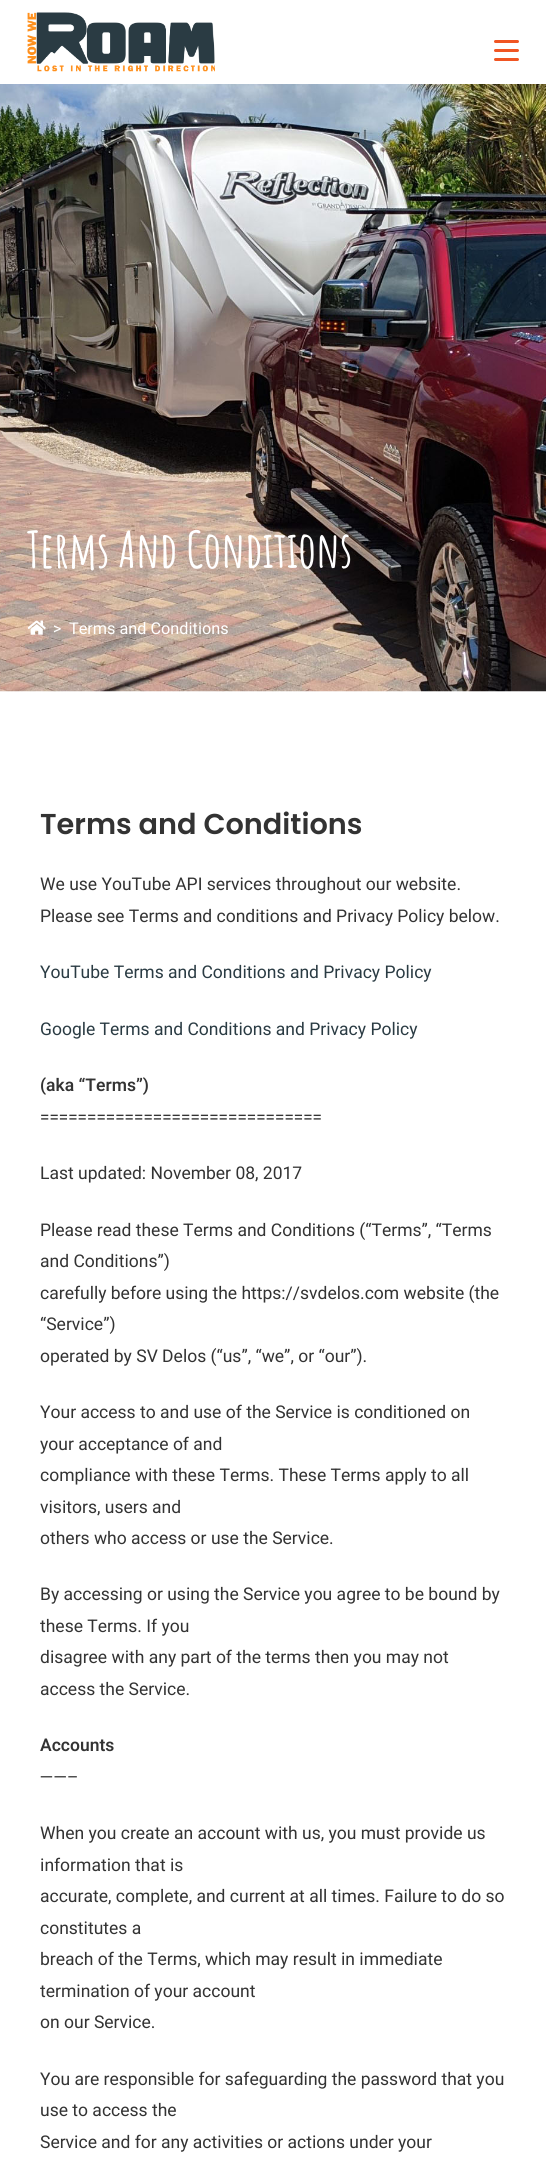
import math
import cairo


def round_path(ctx, x, y, w, h, r):
	ctx.new_sub_path()
	for i, (u, v) in enumerate([(x + w - r, y + h - r), (x + r, y + h - r), (x + r, y + r), (x + w - r, y + r)]):
		ctx.arc(u, v, r, i * math.pi / 2, (i + 1) * math.pi / 2)
	ctx.close_path()

def paste(ctx, path, x, y, w, h):
	ctx.save()
	ctx.set_source_surface(cairo.ImageSurface.create_from_png(path), x, y)
	ctx.rectangle(x, y, w, h)
	ctx.fill()
	ctx.restore()

def draw(ctx):
	ctx.set_source_rgb(1, 1, 1)
	ctx.paint()
	paste(ctx, 'media/1.png', 27, 12, 188, 60)
	ctx.set_source_rgb(0.941, 0.333, 0.137)
	round_path(ctx, 494, 40, 25, 3, 1.5)
	ctx.fill()
	round_path(ctx, 494, 49, 25, 3, 1.5)
	ctx.fill()
	round_path(ctx, 494, 58, 25, 3, 1.5)
	ctx.fill()
	paste(ctx, 'media/2.png', 0, 84, 546, 608)
	ctx.select_font_face('Amatic SC', cairo.FONT_SLANT_NORMAL, cairo.FONT_WEIGHT_BOLD)
	ctx.set_font_size(50)
	ctx.set_source_rgb(1, 1, 1)
	ctx.move_to(27, 568)
	ctx.show_text('Terms And Conditions')
	paste(ctx, 'media/3.png', 28, 620, 18, 15)
	ctx.select_font_face('Heebo')
	ctx.set_font_size(16.25)
	ctx.move_to(53, 634)
	ctx.show_text('>')
	ctx.move_to(69, 634)
	ctx.show_text('Terms and Conditions')
	ctx.select_font_face('Poppins SemiBold')
	ctx.set_font_size(28.75)
	ctx.set_source_rgb(0.2, 0.2, 0.2)
	ctx.move_to(40, 834)
	ctx.show_text('Terms and Conditions')
	ctx.select_font_face('Heebo')
	ctx.set_font_size(17.5)
	ctx.move_to(40, 890)
	ctx.show_text('We use YouTube API services throughout our website.')
	ctx.move_to(40, 922)
	ctx.show_text('Please see Terms and conditions and Privacy Policy below.')
	ctx.set_source_rgb(0.165, 0.231, 0.263)
	ctx.move_to(40, 978)
	ctx.show_text('YouTube Terms and Conditions and Privacy Policy')
	ctx.move_to(40, 1035)
	ctx.show_text('Google Terms and Conditions and Privacy Policy')
	ctx.select_font_face('Heebo SemiBold')
	ctx.set_source_rgb(0.2, 0.2, 0.2)
	ctx.move_to(40, 1091)
	ctx.show_text('(aka “Terms”)')
	ctx.select_font_face('Heebo')
	for x, y, s in [
		(40, 1123, '=============================='),
		(40, 1179, 'Last updated: November 08, 2017'),
		(40, 1236, 'Please read these Terms and Conditions (“Terms”, “Terms'),
		(40, 1267, 'and Conditions”)'),
		(40, 1299, 'carefully before using the https://svdelos.com website (the'),
		(40, 1330, '“Service”)'),
		(40, 1362, 'operated by SV Delos (“us”, “we”, or “our”).'),
		(40, 1418, 'Your access to and use of the Service is conditioned on'),
		(40, 1450, 'your acceptance of and'),
		(40, 1481, 'compliance with these Terms. These Terms apply to all'),
		(40, 1513, 'visitors, users and'),
		(40, 1544, 'others who access or use the Service.'),
		(40, 1600, 'By accessing or using the Service you agree to be bound by'),
		(40, 1632, 'these Terms. If you'),
		(40, 1663, 'disagree with any part of the terms then you may not'),
		(40, 1695, 'access the Service.'),
	]:
		ctx.move_to(x, y)
		ctx.show_text(s)
	ctx.select_font_face('Heebo SemiBold')
	ctx.move_to(40, 1751)
	ctx.show_text('Accounts')
	ctx.select_font_face('Heebo')
	for x, y, s in [
		(40, 1783, '——–'),
		(40, 1839, 'When you create an account with us, you must provide us'),
		(40, 1871, 'information that is'),
		(40, 1902, 'accurate, complete, and current at all times. Failure to do so'),
		(40, 1934, 'constitutes a'),
		(40, 1965, 'breach of the Terms, which may result in immediate'),
		(40, 1997, 'termination of your account'),
		(40, 2028, 'on our Service.'),
		(40, 2085, 'You are responsible for safeguarding the password that you'),
		(40, 2116, 'use to access the'),
		(40, 2148, 'Service and for any activities or actions under your'),
	]:
		ctx.move_to(x, y)
		ctx.show_text(s)


surface = cairo.ImageSurface(cairo.FORMAT_RGB24, 546, 2159)
ctx = cairo.Context(surface)
options = cairo.FontOptions()
options.set_hint_metrics(cairo.HINT_METRICS_OFF)
options.set_hint_style(cairo.HINT_STYLE_NONE)
ctx.set_font_options(options)
ctx.set_miter_limit(4)
draw(ctx)
surface.write_to_png('image.png')
